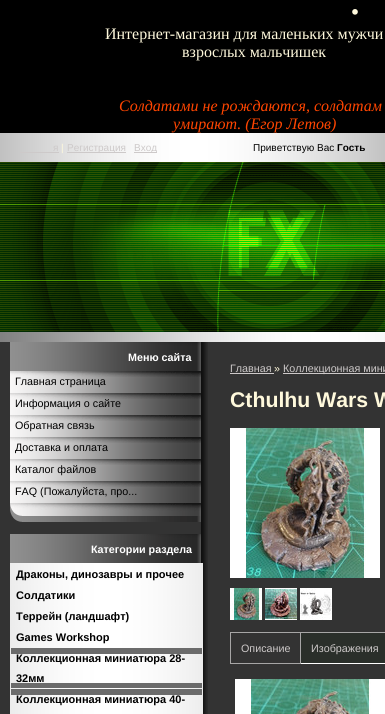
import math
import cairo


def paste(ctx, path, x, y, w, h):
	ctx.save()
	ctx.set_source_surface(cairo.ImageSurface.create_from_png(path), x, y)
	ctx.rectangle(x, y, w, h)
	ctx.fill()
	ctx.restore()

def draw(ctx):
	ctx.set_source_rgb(0.2, 0.2, 0.2)
	ctx.paint()
	ctx.set_source_rgb(0, 0, 0)
	ctx.rectangle(0, 0, 385, 133)
	ctx.fill()
	ctx.select_font_face('Liberation Serif')
	ctx.set_font_size(48)
	ctx.set_source_rgb(1, 0.973, 0.863)
	ctx.move_to(349, 14)
	ctx.show_text('.')
	ctx.set_font_size(16)
	ctx.move_to(105, 39)
	ctx.show_text('Интернет-магазин для маленьких мужчи')
	ctx.move_to(182, 57)
	ctx.show_text('взрослых мальчишек')
	ctx.select_font_face('Liberation Serif', cairo.FONT_SLANT_ITALIC)
	ctx.set_source_rgb(1, 0.271, 0)
	ctx.move_to(119, 111)
	ctx.show_text('Солдатами не рождаются, солдатам')
	ctx.move_to(173, 129)
	ctx.show_text('умирают. (Егор Летов)')
	paste(ctx, 'media/1.png', 0, 133, 385, 29)
	ctx.select_font_face('Liberation Sans')
	ctx.set_font_size(10)
	ctx.set_source_rgb(0.804, 0.788, 0.788)
	ctx.move_to(53, 151)
	ctx.show_text('я')
	ctx.rectangle(20, 152, 39, 1)
	ctx.fill()
	ctx.set_source_rgb(1, 0.973, 0.863)
	ctx.move_to(61, 151)
	ctx.show_text('|')
	ctx.set_source_rgb(0.804, 0.788, 0.788)
	ctx.rectangle(67, 152, 59, 1)
	ctx.fill()
	ctx.move_to(67, 151)
	ctx.show_text('Регистрация')
	ctx.rectangle(134, 152, 23, 1)
	ctx.fill()
	ctx.move_to(134, 151)
	ctx.show_text('Вход')
	ctx.set_source_rgb(0, 0, 0)
	ctx.move_to(253, 151)
	ctx.show_text('Приветствую Вас')
	ctx.select_font_face('Liberation Sans', cairo.FONT_SLANT_NORMAL, cairo.FONT_WEIGHT_BOLD)
	ctx.move_to(337, 151)
	ctx.show_text('Гость')
	paste(ctx, 'media/2.png', 0, 162, 385, 170)
	paste(ctx, 'media/3.png', 0, 332, 385, 10)
	paste(ctx, 'media/4.png', 201, 342, 7, 372)
	paste(ctx, 'media/5.png', 10, 377, 191, 126)
	paste(ctx, 'media/6.png', 10, 342, 191, 29)
	ctx.set_font_size(10.75)
	ctx.set_source_rgb(1, 1, 1)
	ctx.move_to(128, 361)
	ctx.show_text('Меню сайта')
	paste(ctx, 'media/7.png', 10, 371, 191, 6)
	ctx.select_font_face('Liberation Sans')
	ctx.set_source_rgb(0, 0, 0)
	ctx.move_to(15, 385)
	ctx.show_text('Главная страница')
	paste(ctx, 'media/7.png', 10, 393, 191, 6)
	ctx.move_to(15, 407)
	ctx.show_text('Информация о сайте')
	paste(ctx, 'media/7.png', 10, 415, 191, 6)
	ctx.move_to(15, 429)
	ctx.show_text('Обратная связь')
	paste(ctx, 'media/7.png', 10, 437, 191, 6)
	ctx.move_to(15, 451)
	ctx.show_text('Доставка и оплата')
	paste(ctx, 'media/7.png', 10, 459, 191, 6)
	ctx.move_to(15, 473)
	ctx.show_text('Каталог файлов')
	paste(ctx, 'media/7.png', 10, 481, 191, 6)
	ctx.move_to(15, 495)
	ctx.show_text('FAQ (Пожалуйста, про...')
	paste(ctx, 'media/8.png', 10, 503, 191, 19)
	paste(ctx, 'media/6.png', 10, 534, 191, 29)
	ctx.select_font_face('Liberation Sans', cairo.FONT_SLANT_NORMAL, cairo.FONT_WEIGHT_BOLD)
	ctx.set_source_rgb(1, 1, 1)
	ctx.move_to(91, 553)
	ctx.show_text('Категории раздела')
	paste(ctx, 'media/9.png', 10, 563, 193, 151)
	paste(ctx, 'media/10.png', 11, 564, 191, 20)
	ctx.set_font_size(11)
	ctx.set_source_rgb(0, 0, 0)
	ctx.move_to(16, 578)
	ctx.show_text('Драконы, динозавры и прочее')
	paste(ctx, 'media/10.png', 11, 585, 191, 20)
	ctx.move_to(16, 599)
	ctx.show_text('Солдатики')
	paste(ctx, 'media/10.png', 11, 606, 191, 20)
	ctx.move_to(16, 620)
	ctx.show_text('Террейн (ландшафт)')
	paste(ctx, 'media/10.png', 11, 627, 191, 20)
	ctx.move_to(16, 641)
	ctx.show_text('Games Workshop')
	ctx.set_source_rgb(0.42, 0.42, 0.42)
	ctx.rectangle(11, 648, 191, 40)
	ctx.fill()
	paste(ctx, 'media/11.png', 11, 654, 191, 29)
	ctx.set_source_rgb(0, 0, 0)
	ctx.move_to(16, 662)
	ctx.show_text('Коллекционная миниатюра 28-')
	ctx.move_to(16, 682)
	ctx.show_text('32мм')
	ctx.set_source_rgb(0.42, 0.42, 0.42)
	ctx.rectangle(11, 689, 191, 6)
	ctx.fill()
	paste(ctx, 'media/12.png', 11, 695, 191, 19)
	ctx.set_source_rgb(0, 0, 0)
	ctx.move_to(16, 703)
	ctx.show_text('Коллекционная миниатюра 40-')
	ctx.select_font_face('Liberation Sans')
	ctx.set_font_size(10.75)
	ctx.set_source_rgb(0.804, 0.788, 0.788)
	ctx.move_to(230, 372)
	ctx.show_text('Главная')
	ctx.set_source_rgb(1, 0.973, 0.863)
	ctx.move_to(274, 372)
	ctx.show_text('»')
	ctx.set_source_rgb(0.804, 0.788, 0.788)
	ctx.rectangle(230, 373, 44, 1)
	ctx.fill()
	ctx.rectangle(283, 373, 102, 1)
	ctx.fill()
	ctx.move_to(283, 372)
	ctx.show_text('Коллекционная мини')
	ctx.select_font_face('Liberation Sans', cairo.FONT_SLANT_NORMAL, cairo.FONT_WEIGHT_BOLD)
	ctx.set_font_size(21.25)
	ctx.set_source_rgb(1, 0.973, 0.863)
	ctx.move_to(230, 407)
	ctx.show_text('Cthulhu Wars W')
	paste(ctx, 'media/13.png', 230, 428, 150, 150)
	paste(ctx, 'media/14.png', 230, 588, 32, 32)
	paste(ctx, 'media/15.png', 265, 588, 32, 32)
	paste(ctx, 'media/16.png', 300, 588, 32, 32)
	ctx.set_source_rgb(0.655, 0.651, 0.651)
	ctx.rectangle(230, 663, 71, 1)
	ctx.rectangle(230, 632, 1, 32)
	ctx.rectangle(231, 632, 154, 1)
	ctx.rectangle(300, 632, 1, 31)
	ctx.fill()
	ctx.select_font_face('Liberation Sans')
	ctx.set_font_size(10.75)
	ctx.set_source_rgb(0.804, 0.788, 0.788)
	ctx.move_to(241, 652)
	ctx.show_text('Описание')
	ctx.set_source_rgb(0.165, 0.184, 0.165)
	ctx.rectangle(301, 633, 84, 30)
	ctx.fill()
	ctx.set_source_rgb(1, 1, 1)
	ctx.rectangle(301, 663, 84, 1)
	ctx.fill()
	ctx.set_source_rgb(0.804, 0.788, 0.788)
	ctx.move_to(311, 652)
	ctx.show_text('Изображения')
	paste(ctx, 'media/17.png', 235, 679, 150, 35)


surface = cairo.ImageSurface(cairo.FORMAT_RGB24, 385, 714)
ctx = cairo.Context(surface)
options = cairo.FontOptions()
options.set_hint_metrics(cairo.HINT_METRICS_OFF)
options.set_hint_style(cairo.HINT_STYLE_NONE)
ctx.set_font_options(options)
ctx.set_miter_limit(4)
draw(ctx)
surface.write_to_png('image.png')
